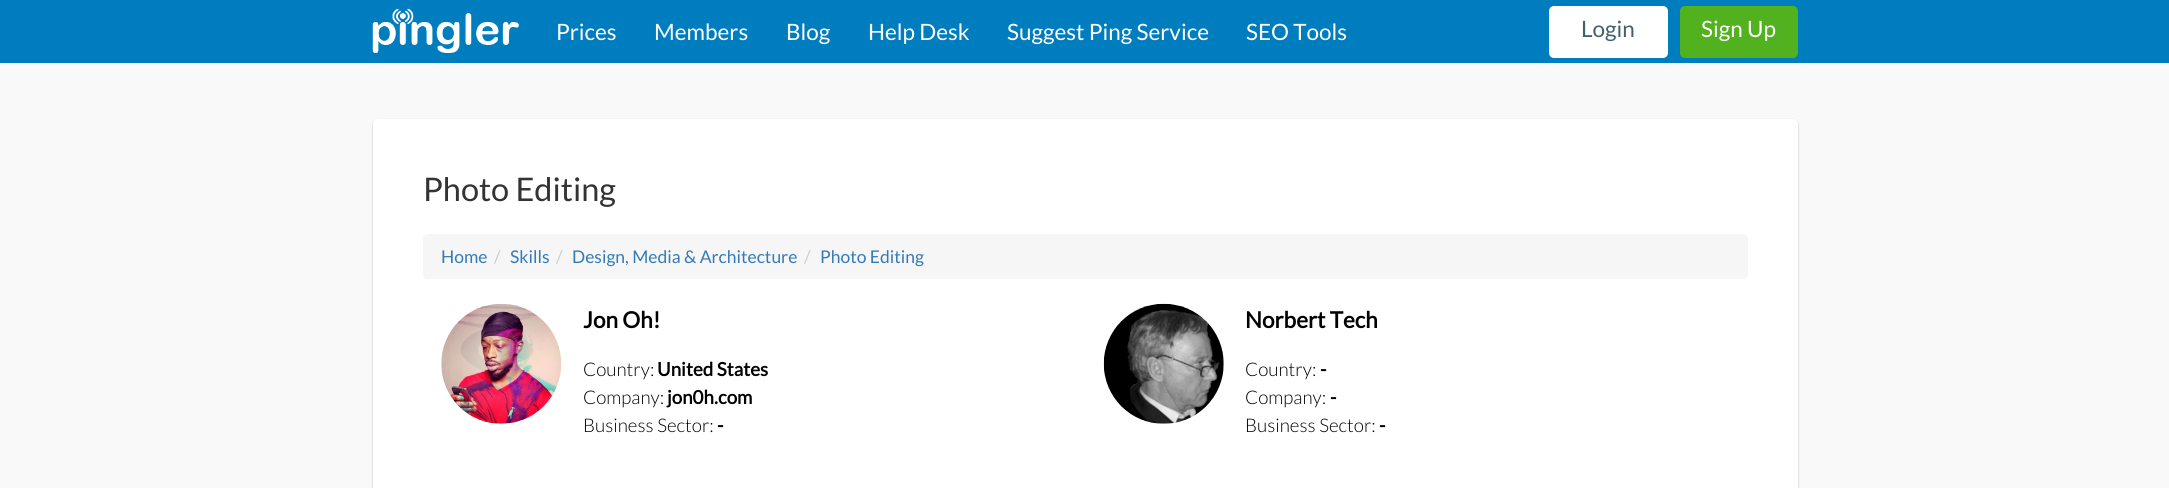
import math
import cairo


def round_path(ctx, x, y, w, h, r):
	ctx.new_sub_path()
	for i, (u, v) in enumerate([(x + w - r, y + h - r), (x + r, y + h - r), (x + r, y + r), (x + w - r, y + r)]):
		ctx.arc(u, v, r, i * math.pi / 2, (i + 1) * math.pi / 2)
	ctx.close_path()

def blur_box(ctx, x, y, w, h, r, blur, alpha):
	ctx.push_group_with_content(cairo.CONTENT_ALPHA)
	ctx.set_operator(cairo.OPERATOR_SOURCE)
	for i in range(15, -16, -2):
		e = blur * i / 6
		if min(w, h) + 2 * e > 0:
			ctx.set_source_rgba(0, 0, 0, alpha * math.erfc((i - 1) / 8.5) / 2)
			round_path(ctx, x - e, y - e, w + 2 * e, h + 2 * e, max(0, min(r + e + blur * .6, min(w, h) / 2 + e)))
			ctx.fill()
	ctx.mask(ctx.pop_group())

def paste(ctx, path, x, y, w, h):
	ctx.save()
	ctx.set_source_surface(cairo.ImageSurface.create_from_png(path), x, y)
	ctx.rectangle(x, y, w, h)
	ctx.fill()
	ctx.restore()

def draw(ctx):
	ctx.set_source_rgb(0.973, 0.973, 0.973)
	ctx.paint()
	ctx.set_source_rgb(0, 0.49, 0.745)
	ctx.rectangle(0, 0, 2169, 63)
	ctx.fill()
	paste(ctx, 'media/1.png', 372, 8, 147, 45)
	ctx.select_font_face('Lato')
	ctx.set_font_size(22.5)
	ctx.set_source_rgb(1, 1, 1)
	for x, y, s in [
		(556, 40, 'Prices'),
		(654, 40, 'Members'),
		(786, 40, 'Blog'),
		(868, 40, 'Help Desk'),
		(1007, 40, 'Suggest Ping Service'),
		(1246, 40, 'SEO Tools'),
	]:
		ctx.move_to(x, y)
		ctx.show_text(s)
	round_path(ctx, 1549, 6, 119, 52, 5)
	ctx.fill()
	ctx.set_source_rgb(0.255, 0.373, 0.435)
	ctx.move_to(1581, 37)
	ctx.show_text('Login')
	ctx.set_source_rgb(0.322, 0.694, 0.118)
	round_path(ctx, 1680, 6, 118, 52, 5)
	ctx.fill()
	ctx.set_source_rgb(1, 1, 1)
	ctx.move_to(1701, 37)
	ctx.show_text('Sign Up')
	ctx.set_source_rgb(0, 0, 0)
	blur_box(ctx, 373, 120, 1425, 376, 5, 1, 0.24)
	ctx.set_source_rgb(1, 1, 1)
	round_path(ctx, 373, 119, 1425, 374, 5)
	ctx.fill()
	ctx.set_font_size(32.5)
	ctx.set_source_rgb(0.2, 0.2, 0.2)
	ctx.move_to(423, 201)
	ctx.show_text('Photo Editing')
	ctx.set_source_rgb(0.961, 0.961, 0.961)
	round_path(ctx, 423, 234, 1325, 45, 5)
	ctx.fill()
	ctx.set_font_size(17.5)
	ctx.set_source_rgb(0.2, 0.478, 0.718)
	ctx.move_to(441, 263)
	ctx.show_text('Home')
	ctx.set_source_rgb(0.8, 0.8, 0.8)
	ctx.move_to(494, 263)
	ctx.show_text('/')
	ctx.set_source_rgb(0.2, 0.478, 0.718)
	ctx.move_to(510, 263)
	ctx.show_text('Skills')
	ctx.set_source_rgb(0.8, 0.8, 0.8)
	ctx.move_to(556, 263)
	ctx.show_text('/')
	ctx.set_source_rgb(0.2, 0.478, 0.718)
	ctx.move_to(572, 263)
	ctx.show_text('Design, Media & Architecture')
	ctx.set_source_rgb(0.8, 0.8, 0.8)
	ctx.move_to(804, 263)
	ctx.show_text('/')
	ctx.set_source_rgb(0.2, 0.478, 0.718)
	ctx.move_to(820, 263)
	ctx.show_text('Photo Editing')
	paste(ctx, 'media/2.png', 441, 303, 120, 121)
	ctx.select_font_face('Lato', cairo.FONT_SLANT_NORMAL, cairo.FONT_WEIGHT_BOLD)
	ctx.set_font_size(22.5)
	ctx.set_source_rgb(0, 0, 0)
	ctx.move_to(583, 328)
	ctx.show_text('Jon Oh!')
	ctx.select_font_face('Lato Light')
	ctx.set_font_size(18.75)
	ctx.move_to(583, 376)
	ctx.show_text('Country:')
	ctx.select_font_face('Lato', cairo.FONT_SLANT_NORMAL, cairo.FONT_WEIGHT_BOLD)
	ctx.move_to(657, 376)
	ctx.show_text('United States')
	ctx.select_font_face('Lato Light')
	ctx.move_to(583, 404)
	ctx.show_text('Company:')
	ctx.select_font_face('Lato', cairo.FONT_SLANT_NORMAL, cairo.FONT_WEIGHT_BOLD)
	ctx.move_to(667, 404)
	ctx.show_text('jon0h.com')
	ctx.select_font_face('Lato Light')
	ctx.move_to(583, 432)
	ctx.show_text('Business Sector:')
	ctx.select_font_face('Lato', cairo.FONT_SLANT_NORMAL, cairo.FONT_WEIGHT_BOLD)
	ctx.move_to(717, 432)
	ctx.show_text('-')
	paste(ctx, 'media/3.png', 1103, 303, 121, 121)
	ctx.set_font_size(22.5)
	ctx.move_to(1245, 328)
	ctx.show_text('Norbert Tech')
	ctx.select_font_face('Lato Light')
	ctx.set_font_size(18.75)
	ctx.move_to(1245, 376)
	ctx.show_text('Country:')
	ctx.select_font_face('Lato', cairo.FONT_SLANT_NORMAL, cairo.FONT_WEIGHT_BOLD)
	ctx.move_to(1320, 376)
	ctx.show_text('-')
	ctx.select_font_face('Lato Light')
	ctx.move_to(1245, 404)
	ctx.show_text('Company:')
	ctx.select_font_face('Lato', cairo.FONT_SLANT_NORMAL, cairo.FONT_WEIGHT_BOLD)
	ctx.move_to(1330, 404)
	ctx.show_text('-')
	ctx.select_font_face('Lato Light')
	ctx.move_to(1245, 432)
	ctx.show_text('Business Sector:')
	ctx.select_font_face('Lato', cairo.FONT_SLANT_NORMAL, cairo.FONT_WEIGHT_BOLD)
	ctx.move_to(1379, 432)
	ctx.show_text('-')


surface = cairo.ImageSurface(cairo.FORMAT_RGB24, 2169, 488)
ctx = cairo.Context(surface)
options = cairo.FontOptions()
options.set_hint_metrics(cairo.HINT_METRICS_OFF)
options.set_hint_style(cairo.HINT_STYLE_NONE)
ctx.set_font_options(options)
ctx.set_miter_limit(4)
draw(ctx)
surface.write_to_png('image.png')
